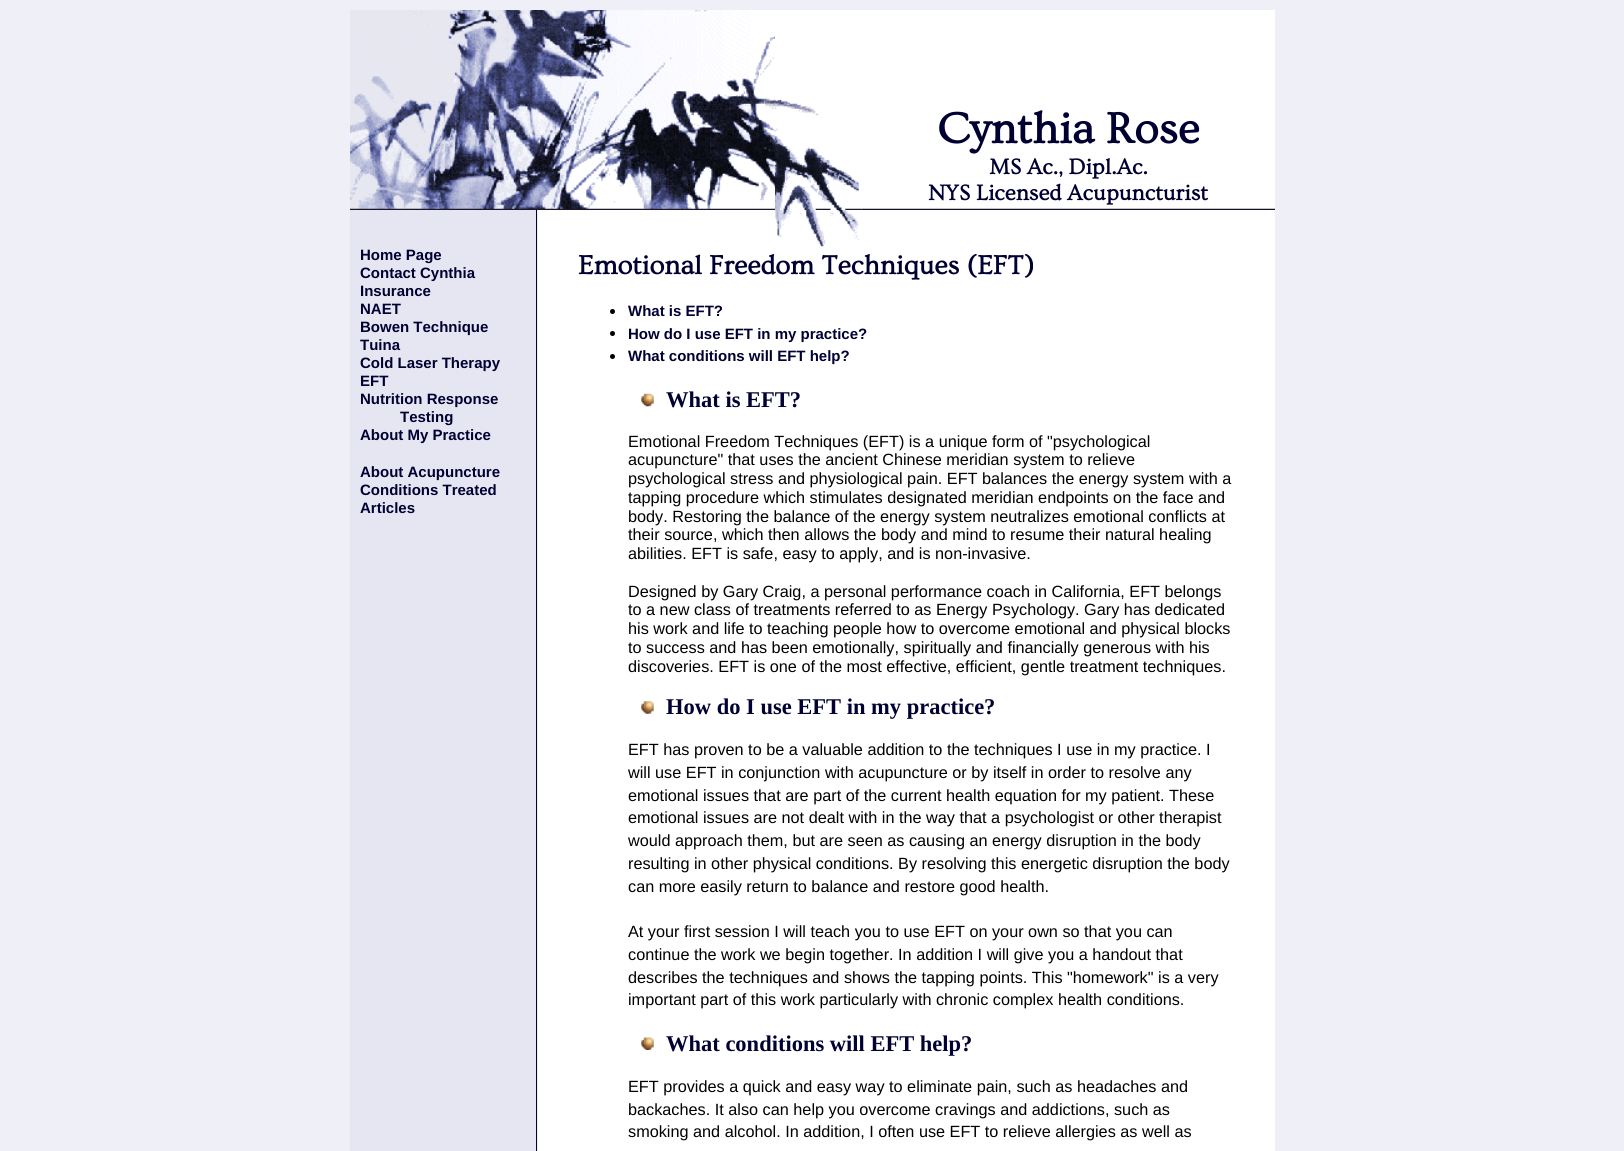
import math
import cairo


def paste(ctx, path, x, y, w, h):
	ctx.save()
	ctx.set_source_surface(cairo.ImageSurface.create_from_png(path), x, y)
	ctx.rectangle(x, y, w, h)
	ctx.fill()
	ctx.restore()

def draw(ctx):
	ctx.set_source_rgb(0.937, 0.937, 0.969)
	ctx.paint()
	paste(ctx, 'media/1.png', 350, 10, 425, 200)
	ctx.set_source_rgb(1, 1, 1)
	ctx.rectangle(775, 10, 86, 90)
	ctx.fill()
	ctx.rectangle(861, 10, 414, 200)
	ctx.fill()
	paste(ctx, 'media/2.png', 775, 100, 87, 110)
	ctx.select_font_face('Ovo', cairo.FONT_SLANT_NORMAL, cairo.FONT_WEIGHT_BOLD)
	ctx.set_font_size(45)
	ctx.set_source_rgb(0, 0, 0.2)
	ctx.move_to(937, 143)
	ctx.show_text('Cynthia Rose')
	ctx.set_font_size(22.5)
	ctx.move_to(989, 174)
	ctx.show_text('MS Ac., Dipl.Ac.')
	ctx.move_to(928, 200)
	ctx.show_text('NYS Licensed Acupuncturist')
	paste(ctx, 'media/3.png', 861, 208, 414, 2)
	ctx.set_source_rgb(0.902, 0.902, 0.949)
	ctx.rectangle(350, 210, 186, 941)
	ctx.fill()
	ctx.set_source_rgb(0, 0, 0.2)
	ctx.rectangle(536, 210, 1, 941)
	ctx.fill()
	ctx.set_source_rgb(1, 1, 1)
	ctx.rectangle(538, 210, 237, 36)
	ctx.rectangle(538, 246, 737, 905)
	ctx.fill()
	paste(ctx, 'media/4.png', 775, 210, 87, 37)
	ctx.rectangle(861, 210, 414, 36)
	ctx.fill()
	ctx.select_font_face('Liberation Sans', cairo.FONT_SLANT_NORMAL, cairo.FONT_WEIGHT_BOLD)
	ctx.set_font_size(15)
	ctx.set_source_rgb(0, 0, 0.2)
	for x, y, s in [
		(360, 260, 'Home Page'),
		(360, 278, 'Contact Cynthia'),
		(360, 296, 'Insurance'),
		(360, 314, 'NAET'),
		(360, 332, 'Bowen Technique'),
		(360, 350, 'Tuina'),
		(360, 368, 'Cold Laser Therapy'),
		(360, 386, 'EFT'),
		(360, 404, 'Nutrition Response'),
		(400, 422, 'Testing'),
		(360, 440, 'About My Practice'),
		(360, 477, 'About Acupuncture'),
		(360, 495, 'Conditions Treated'),
		(360, 513, 'Articles'),
	]:
		ctx.move_to(x, y)
		ctx.show_text(s)
	ctx.select_font_face('Ovo', cairo.FONT_SLANT_NORMAL, cairo.FONT_WEIGHT_BOLD)
	ctx.set_font_size(27.5)
	ctx.move_to(578, 274)
	ctx.show_text('Emotional Freedom Techniques (EFT)')
	ctx.set_source_rgb(0, 0, 0)
	ctx.new_path()
	ctx.arc(612.5, 311.5, 2.5, 0, 2 * math.pi)
	ctx.fill()
	ctx.select_font_face('Liberation Sans', cairo.FONT_SLANT_NORMAL, cairo.FONT_WEIGHT_BOLD)
	ctx.set_font_size(15)
	ctx.set_source_rgb(0, 0, 0.2)
	ctx.move_to(628, 316)
	ctx.show_text('What is EFT?')
	ctx.set_source_rgb(0, 0, 0)
	ctx.new_path()
	ctx.arc(612.5, 333.5, 2.5, 0, 2 * math.pi)
	ctx.fill()
	ctx.set_source_rgb(0, 0, 0.2)
	ctx.move_to(628, 339)
	ctx.show_text('How do I use EFT in my practice?')
	ctx.set_source_rgb(0, 0, 0)
	ctx.new_path()
	ctx.arc(612.5, 356.5, 2.5, 0, 2 * math.pi)
	ctx.fill()
	ctx.set_source_rgb(0, 0, 0.2)
	ctx.move_to(628, 361)
	ctx.show_text('What conditions will EFT help?')
	paste(ctx, 'media/5.png', 641, 393, 13, 14)
	ctx.select_font_face('Liberation Serif', cairo.FONT_SLANT_NORMAL, cairo.FONT_WEIGHT_BOLD)
	ctx.set_font_size(22.5)
	ctx.move_to(666, 407)
	ctx.show_text('What is EFT?')
	ctx.select_font_face('Liberation Sans')
	ctx.set_font_size(16.25)
	ctx.set_source_rgb(0, 0, 0)
	for x, y, s in [
		(628, 447, 'Emotional Freedom Techniques (EFT) is a unique form of "psychological'),
		(628, 465, 'acupuncture" that uses the ancient Chinese meridian system to relieve'),
		(628, 484, 'psychological stress and physiological pain. EFT balances the energy system with a'),
		(628, 503, 'tapping procedure which stimulates designated meridian endpoints on the face and'),
		(628, 522, 'body. Restoring the balance of the energy system neutralizes emotional conflicts at'),
		(628, 540, 'their source, which then allows the body and mind to resume their natural healing'),
		(628, 559, 'abilities. EFT is safe, easy to apply, and is non-invasive.'),
		(628, 597, 'Designed by Gary Craig, a personal performance coach in California, EFT belongs'),
		(628, 615, 'to a new class of treatments referred to as Energy Psychology. Gary has dedicated'),
		(628, 634, 'his work and life to teaching people how to overcome emotional and physical blocks'),
		(628, 653, 'to success and has been emotionally, spiritually and financially generous with his'),
		(628, 672, 'discoveries. EFT is one of the most effective, efficient, gentle treatment techniques.'),
	]:
		ctx.move_to(x, y)
		ctx.show_text(s)
	paste(ctx, 'media/6.png', 641, 701, 13, 13)
	ctx.select_font_face('Liberation Serif', cairo.FONT_SLANT_NORMAL, cairo.FONT_WEIGHT_BOLD)
	ctx.set_font_size(22.5)
	ctx.set_source_rgb(0, 0, 0.2)
	ctx.move_to(666, 714)
	ctx.show_text('How do I use EFT in my practice?')
	ctx.select_font_face('Liberation Sans')
	ctx.set_font_size(16.25)
	ctx.set_source_rgb(0, 0, 0)
	for x, y, s in [
		(628, 755, 'EFT has proven to be a valuable addition to the techniques I use in my practice. I'),
		(628, 778, 'will use EFT in conjunction with acupuncture or by itself in order to resolve any'),
		(628, 801, 'emotional issues that are part of the current health equation for my patient. These'),
		(628, 823, 'emotional issues are not dealt with in the way that a psychologist or other therapist'),
		(628, 846, 'would approach them, but are seen as causing an energy disruption in the body'),
		(628, 869, 'resulting in other physical conditions. By resolving this energetic disruption the body'),
		(628, 892, 'can more easily return to balance and restore good health.'),
		(628, 937, 'At your first session I will teach you to use EFT on your own so that you can'),
		(628, 960, 'continue the work we begin together. In addition I will give you a handout that'),
		(628, 983, 'describes the techniques and shows the tapping points. This "homework" is a very'),
		(628, 1005, 'important part of this work particularly with chronic complex health conditions.'),
	]:
		ctx.move_to(x, y)
		ctx.show_text(s)
	paste(ctx, 'media/7.png', 641, 1037, 13, 13)
	ctx.select_font_face('Liberation Serif', cairo.FONT_SLANT_NORMAL, cairo.FONT_WEIGHT_BOLD)
	ctx.set_font_size(22.5)
	ctx.set_source_rgb(0, 0, 0.2)
	ctx.move_to(666, 1051)
	ctx.show_text('What conditions will EFT help?')
	ctx.select_font_face('Liberation Sans')
	ctx.set_font_size(16.25)
	ctx.set_source_rgb(0, 0, 0)
	for x, y, s in [
		(628, 1092, 'EFT provides a quick and easy way to eliminate pain, such as headaches and'),
		(628, 1115, 'backaches. It also can help you overcome cravings and addictions, such as'),
		(628, 1137, 'smoking and alcohol. In addition, I often use EFT to relieve allergies as well as'),
	]:
		ctx.move_to(x, y)
		ctx.show_text(s)


surface = cairo.ImageSurface(cairo.FORMAT_RGB24, 1624, 1151)
ctx = cairo.Context(surface)
options = cairo.FontOptions()
options.set_hint_metrics(cairo.HINT_METRICS_OFF)
options.set_hint_style(cairo.HINT_STYLE_NONE)
ctx.set_font_options(options)
ctx.set_miter_limit(4)
draw(ctx)
surface.write_to_png('image.png')
